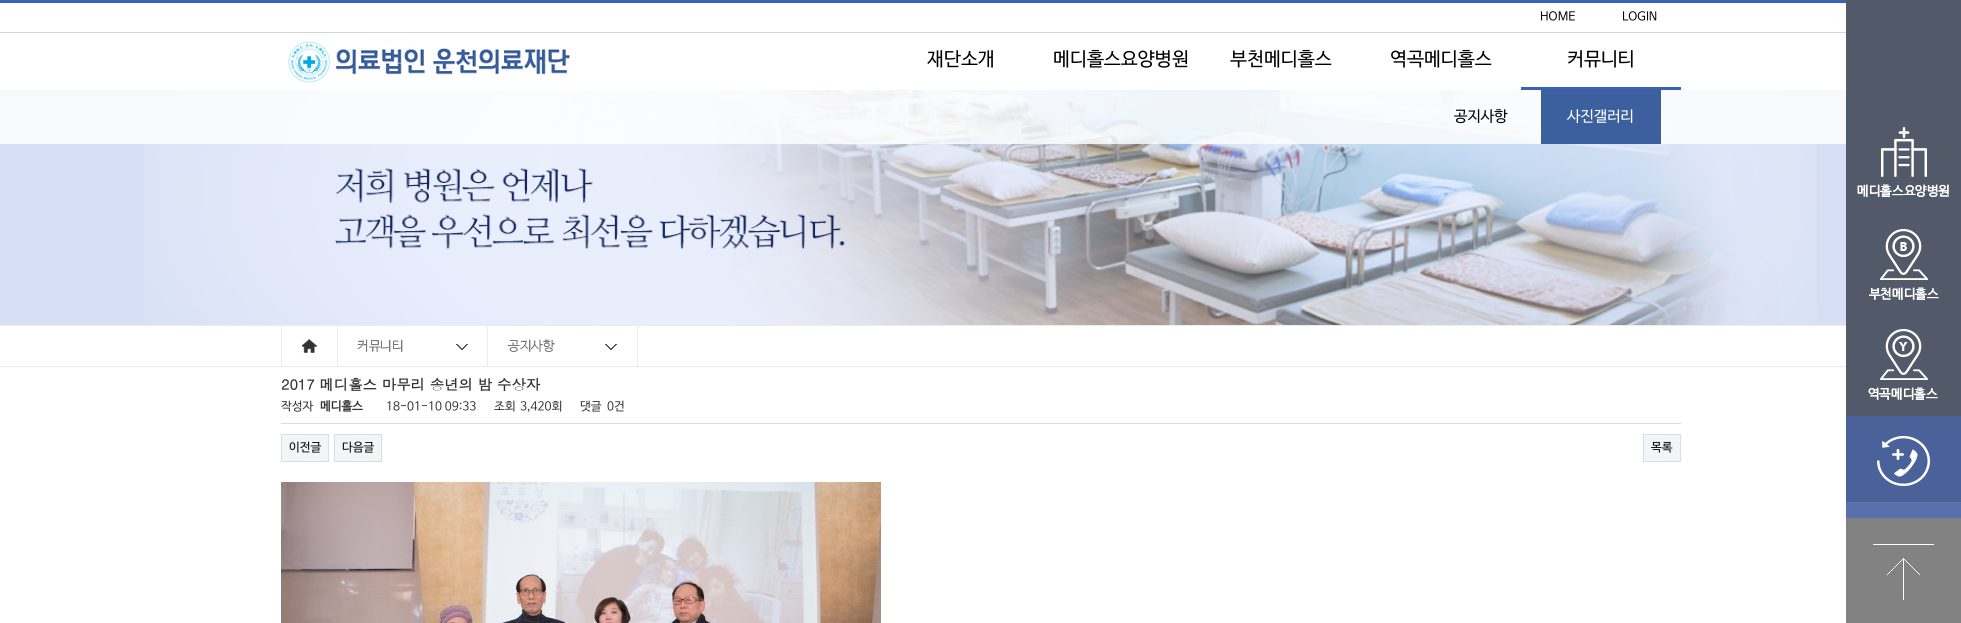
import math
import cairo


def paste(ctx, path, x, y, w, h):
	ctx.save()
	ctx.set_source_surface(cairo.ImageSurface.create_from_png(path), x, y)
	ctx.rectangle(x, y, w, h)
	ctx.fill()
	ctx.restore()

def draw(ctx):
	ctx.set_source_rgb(1, 1, 1)
	ctx.paint()
	ctx.set_source_rgb(0.224, 0.38, 0.71)
	ctx.rectangle(0, 0, 1846, 3)
	ctx.fill()
	ctx.set_source_rgb(0.816, 0.835, 0.839)
	ctx.rectangle(0, 32, 1846, 1)
	ctx.fill()
	ctx.select_font_face('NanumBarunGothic')
	ctx.set_font_size(12)
	ctx.set_source_rgb(0, 0, 0)
	ctx.move_to(1540, 20)
	ctx.show_text('HOME')
	ctx.move_to(1622, 20)
	ctx.show_text('LOGIN')
	paste(ctx, 'media/1.png', 288, 38, 282, 45)
	ctx.set_font_size(19)
	for x, y, s in [
		(927, 65, '재단소개'),
		(1053, 65, '메디홀스요양병원'),
		(1230, 65, '부천메디홀스'),
		(1390, 65, '역곡메디홀스'),
	]:
		ctx.move_to(x, y)
		ctx.show_text(s)
	ctx.set_source_rgb(0.227, 0.384, 0.706)
	ctx.rectangle(1521, 87, 160, 3)
	ctx.fill()
	ctx.set_source_rgb(0, 0, 0)
	ctx.move_to(1567, 65)
	ctx.show_text('커뮤니티')
	ctx.set_source_rgb(0.843, 0.875, 0.961)
	ctx.rectangle(0, 90, 1846, 235)
	ctx.fill()
	paste(ctx, 'media/7.png', 144, 90, 1673, 235)
	ctx.set_source_rgba(1, 1, 1, 0.8)
	ctx.rectangle(0, 90, 1846, 54)
	ctx.fill()
	ctx.set_font_size(15)
	ctx.set_source_rgb(0, 0, 0)
	ctx.move_to(1454, 121)
	ctx.show_text('공지사항')
	ctx.set_source_rgb(0.231, 0.376, 0.616)
	ctx.rectangle(1541, 90, 120, 54)
	ctx.fill()
	ctx.set_source_rgb(1, 1, 1)
	ctx.move_to(1567, 121)
	ctx.show_text('사진갤러리')
	ctx.set_source_rgb(0.322, 0.349, 0.408)
	ctx.rectangle(1846, 0, 115, 110)
	ctx.fill()
	paste(ctx, 'media/2.png', 1846, 110, 115, 102)
	paste(ctx, 'media/3.png', 1846, 212, 115, 103)
	paste(ctx, 'media/4.png', 1846, 315, 115, 101)
	paste(ctx, 'media/5.png', 1846, 416, 115, 86)
	ctx.set_source_rgb(0.345, 0.439, 0.675)
	ctx.rectangle(1846, 502, 115, 16)
	ctx.fill()
	paste(ctx, 'media/6.png', 1846, 518, 115, 105)
	ctx.set_source_rgb(0.922, 0.922, 0.922)
	ctx.rectangle(0, 325, 1846, 1)
	ctx.fill()
	ctx.rectangle(0, 366, 1846, 1)
	ctx.fill()
	paste(ctx, 'media/8.png', 281, 326, 357, 40)
	ctx.select_font_face('Dotum', cairo.FONT_SLANT_NORMAL, cairo.FONT_WEIGHT_BOLD)
	ctx.set_font_size(14.4)
	ctx.set_source_rgb(0.2, 0.2, 0.2)
	ctx.move_to(281, 390)
	ctx.show_text('2017 메디홀스 마무리 송년의 밤 수상자')
	ctx.set_source_rgb(0.867, 0.867, 0.867)
	ctx.rectangle(281, 423, 1400, 1)
	ctx.fill()
	ctx.select_font_face('NanumBarunGothic')
	ctx.set_font_size(12)
	ctx.set_source_rgb(0.2, 0.2, 0.2)
	ctx.move_to(281, 410)
	ctx.show_text('작성자')
	ctx.select_font_face('NanumBarunGothic', cairo.FONT_SLANT_NORMAL, cairo.FONT_WEIGHT_BOLD)
	ctx.move_to(320, 410)
	ctx.show_text('메디홀스')
	ctx.select_font_face('NanumBarunGothic')
	for x, y, s in [
		(386, 410, '18-01-10 09:33'),
		(494, 410, '조회'),
		(520, 410, '3,420회'),
		(580, 410, '댓글'),
		(607, 410, '0건'),
	]:
		ctx.move_to(x, y)
		ctx.show_text(s)
	ctx.set_source_rgb(0.949, 0.961, 0.976)
	ctx.rectangle(281.5, 434.5, 47, 27)
	ctx.fill_preserve()
	ctx.set_source_rgb(0.851, 0.871, 0.851)
	ctx.set_line_width(1)
	ctx.stroke()
	ctx.set_source_rgb(0, 0, 0)
	ctx.move_to(289, 451)
	ctx.show_text('이전글')
	ctx.set_source_rgb(0.949, 0.961, 0.976)
	ctx.rectangle(334.5, 434.5, 47, 27)
	ctx.fill_preserve()
	ctx.set_source_rgb(0.851, 0.871, 0.851)
	ctx.stroke()
	ctx.set_source_rgb(0, 0, 0)
	ctx.move_to(342, 451)
	ctx.show_text('다음글')
	ctx.set_source_rgb(0.949, 0.961, 0.976)
	ctx.rectangle(1643.5, 434.5, 37, 27)
	ctx.fill_preserve()
	ctx.set_source_rgb(0.851, 0.871, 0.851)
	ctx.stroke()
	ctx.set_source_rgb(0, 0, 0)
	ctx.move_to(1651, 451)
	ctx.show_text('목록')
	paste(ctx, 'media/9.png', 281, 482, 600, 141)


surface = cairo.ImageSurface(cairo.FORMAT_RGB24, 1961, 623)
ctx = cairo.Context(surface)
options = cairo.FontOptions()
options.set_hint_metrics(cairo.HINT_METRICS_OFF)
options.set_hint_style(cairo.HINT_STYLE_NONE)
ctx.set_font_options(options)
ctx.set_miter_limit(4)
draw(ctx)
surface.write_to_png('image.png')
